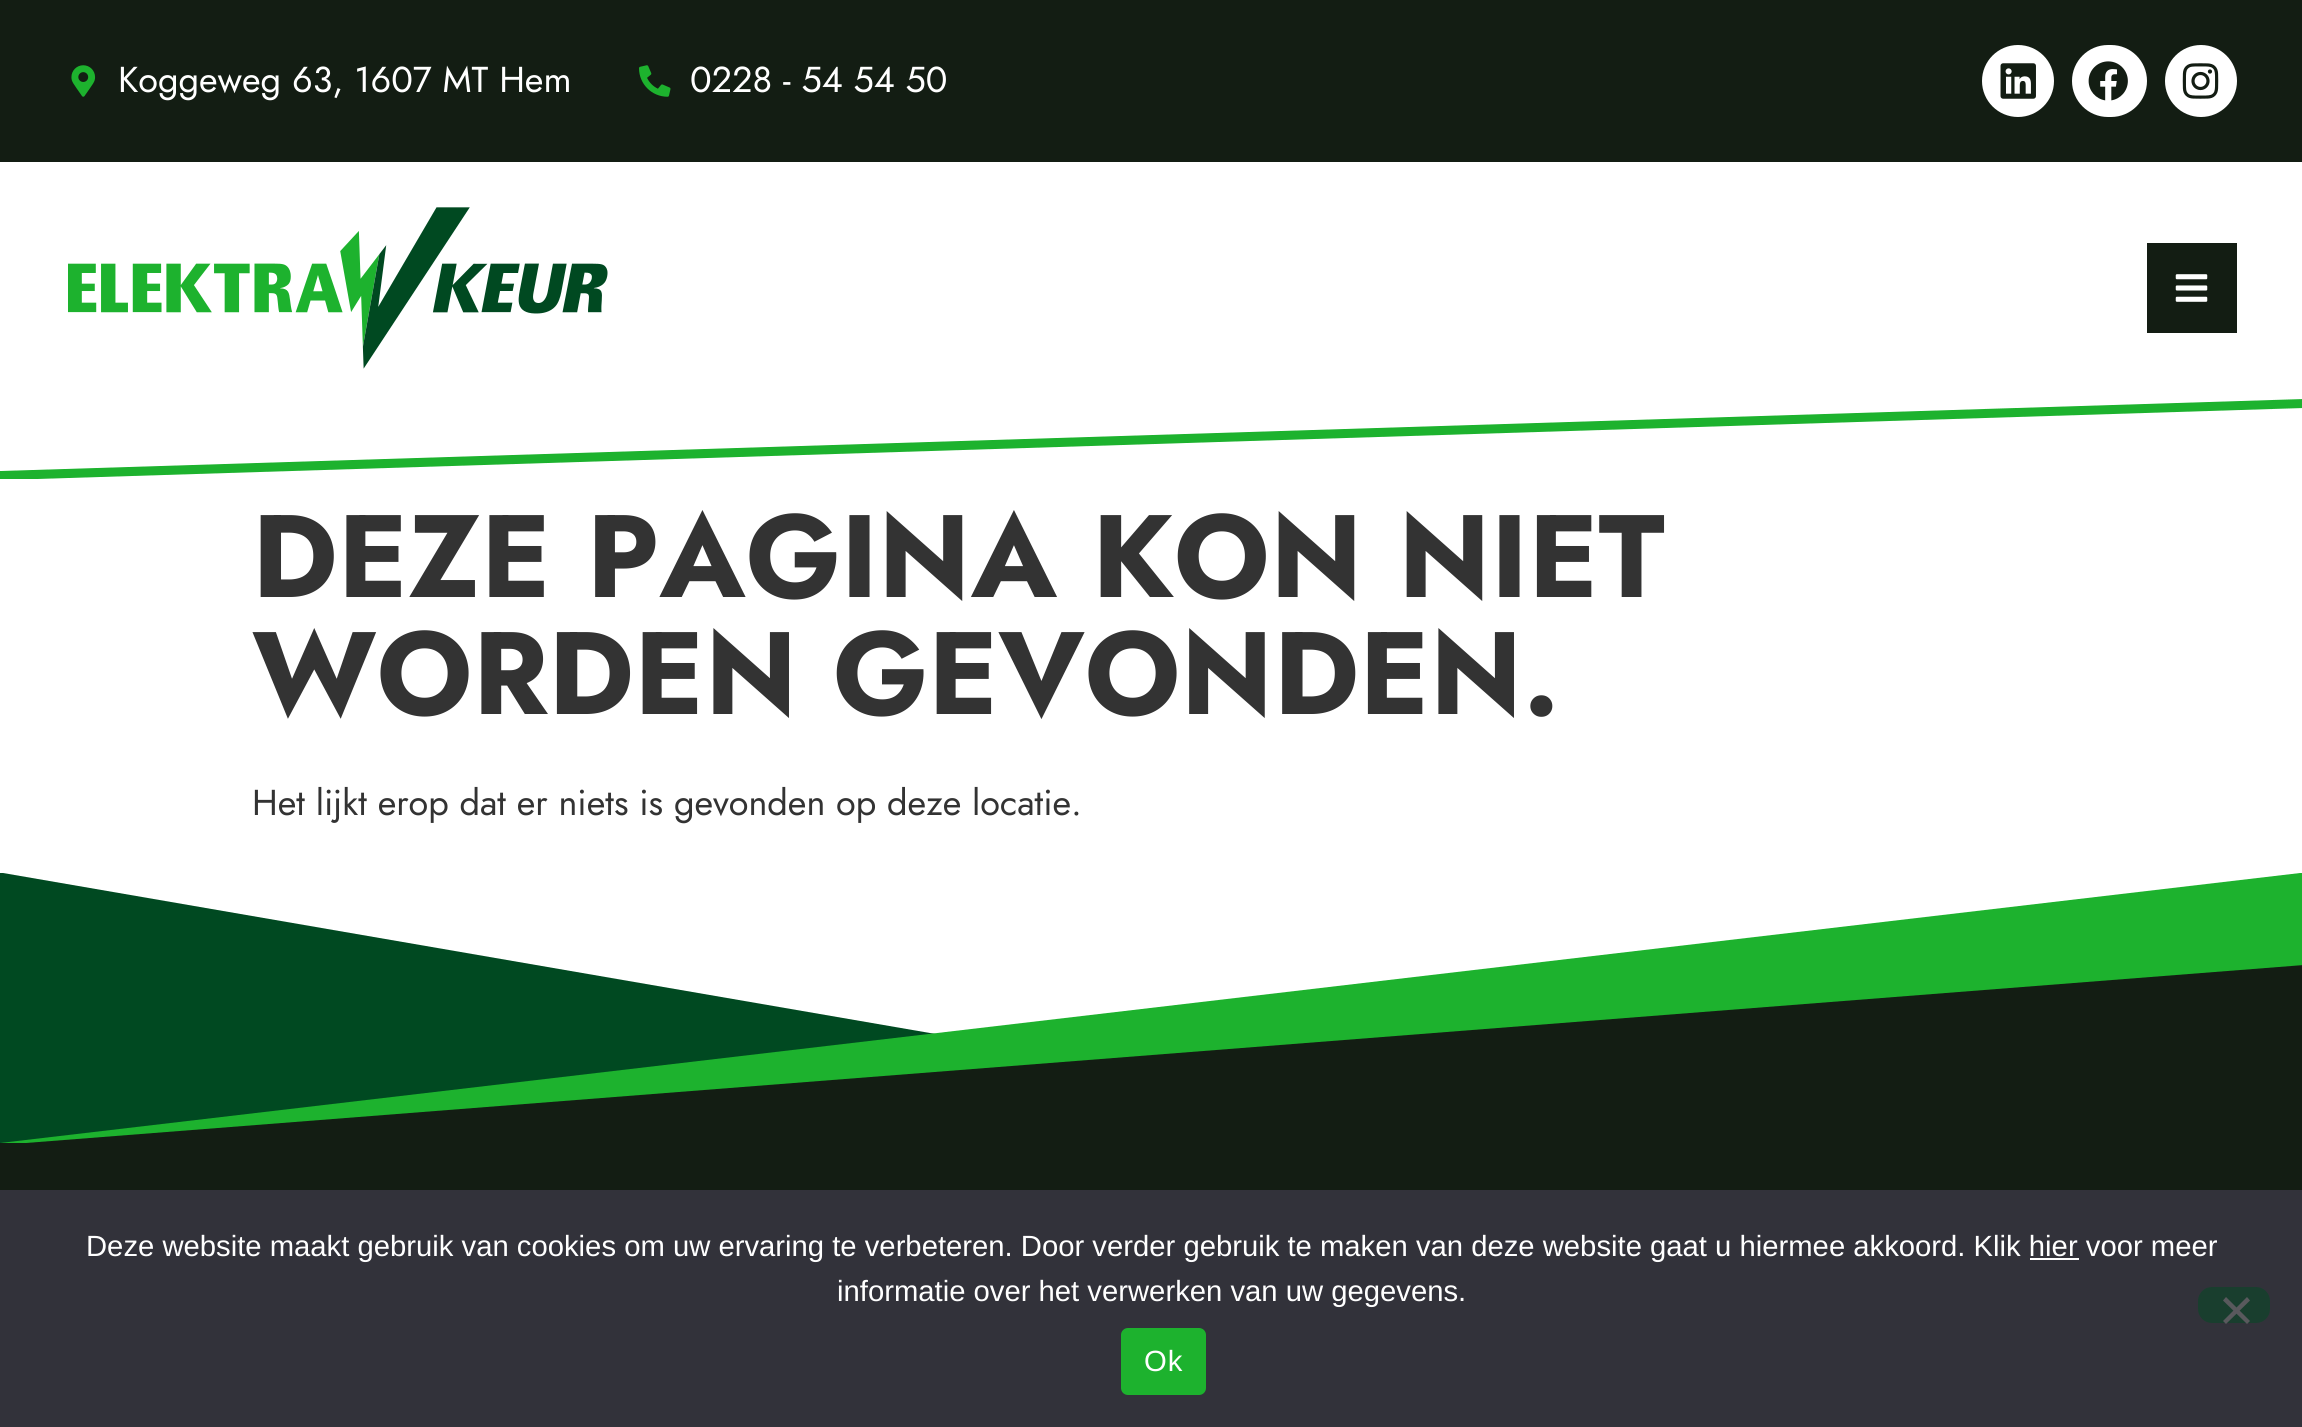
import math
import cairo


def write_spaced(ctx, x, y, s, letter, word):
	ctx.move_to(x, y)
	for ch in s:
		ctx.show_text(ch)
		ctx.rel_move_to(letter + word * (ch == ' '), 0)

def round_path(ctx, x, y, w, h, r):
	ctx.new_sub_path()
	for i, (u, v) in enumerate([(x + w - r, y + h - r), (x + r, y + h - r), (x + r, y + r), (x + w - r, y + r)]):
		ctx.arc(u, v, r, i * math.pi / 2, (i + 1) * math.pi / 2)
	ctx.close_path()

def paste(ctx, path, x, y, w, h):
	ctx.save()
	ctx.set_source_surface(cairo.ImageSurface.create_from_png(path), x, y)
	ctx.rectangle(x, y, w, h)
	ctx.fill()
	ctx.restore()

def draw(ctx):
	ctx.set_source_rgb(1, 1, 1)
	ctx.paint()
	ctx.set_source_rgb(0.075, 0.114, 0.075)
	ctx.rectangle(0, 0, 2302, 162)
	ctx.fill()
	paste(ctx, 'media/1.png', 71, 65, 25, 32)
	ctx.select_font_face('Jost')
	ctx.set_font_size(36)
	ctx.set_source_rgb(1, 1, 1)
	ctx.move_to(118, 92)
	ctx.show_text('Koggeweg 63, 1607 MT Hem')
	paste(ctx, 'media/2.png', 639, 65, 32, 32)
	ctx.move_to(690, 92)
	ctx.show_text('0228 - 54 54 50')
	ctx.new_path()
	ctx.arc(2018, 81, 36, 0, 2 * math.pi)
	ctx.fill()
	paste(ctx, 'media/3.png', 2000, 63, 36, 36)
	round_path(ctx, 2072, 45, 75, 72, 36)
	ctx.fill()
	paste(ctx, 'media/4.png', 2088, 61, 40, 40)
	ctx.arc(2201, 81, 36, 0, 2 * math.pi)
	ctx.fill()
	paste(ctx, 'media/5.png', 2182, 63, 37, 36)
	paste(ctx, 'media/6.png', 68, 207, 540, 162)
	ctx.set_source_rgb(0.075, 0.114, 0.075)
	ctx.rectangle(2147, 243, 90, 90)
	ctx.fill()
	paste(ctx, 'media/7.png', 2175, 274, 33, 28)
	ctx.set_source_rgb(0.114, 0.698, 0.18)
	ctx.new_path()
	ctx.move_to(0, 471)
	ctx.line_to(0, 479)
	ctx.line_to(36, 479)
	ctx.line_to(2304, 408)
	ctx.line_to(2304, 399)
	ctx.close_path()
	ctx.fill()
	ctx.select_font_face('Jost', cairo.FONT_SLANT_NORMAL, cairo.FONT_WEIGHT_BOLD)
	ctx.set_font_size(117)
	ctx.set_source_rgb(0.2, 0.2, 0.2)
	ctx.move_to(252, 597)
	ctx.show_text('DEZE PAGINA KON NIET')
	ctx.move_to(252, 714)
	ctx.show_text('WORDEN GEVONDEN.')
	ctx.select_font_face('Jost')
	ctx.set_font_size(36)
	ctx.move_to(252, 815)
	ctx.show_text('Het lijkt erop dat er niets is gevonden op deze locatie.')
	ctx.set_source_rgb(0, 0.286, 0.129)
	ctx.new_path()
	ctx.move_to(0, 873)
	ctx.line_to(0, 1143)
	ctx.line_to(1567, 1143)
	ctx.line_to(3, 873)
	ctx.close_path()
	ctx.fill()
	ctx.set_source_rgb(0.114, 0.698, 0.18)
	ctx.new_path()
	ctx.move_to(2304, 1143)
	ctx.line_to(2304, 873)
	ctx.line_to(2300, 873)
	ctx.line_to(0, 1143)
	ctx.close_path()
	ctx.fill()
	ctx.set_source_rgb(0.075, 0.114, 0.075)
	ctx.rectangle(0, 1143, 2302, 47)
	ctx.fill()
	ctx.new_path()
	ctx.move_to(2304, 1145)
	ctx.line_to(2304, 965)
	ctx.line_to(0, 1145)
	ctx.close_path()
	ctx.fill()
	ctx.set_source_rgb(0.196, 0.196, 0.227)
	ctx.rectangle(0, 1190, 2302, 237)
	ctx.fill()
	ctx.select_font_face('Liberation Sans')
	ctx.set_font_size(29.25)
	ctx.set_source_rgb(1, 1, 1)
	ctx.move_to(86, 1256)
	ctx.show_text('Deze website maakt gebruik van cookies om uw ervaring te verbeteren. Door verder gebruik te maken van deze website gaat u hiermee akkoord. Klik hier voor meer')
	ctx.rectangle(2030, 1258, 49, 2)
	ctx.fill()
	ctx.move_to(837, 1301)
	ctx.show_text('informatie over het verwerken van uw gegevens.')
	ctx.set_source_rgb(0.098, 0.243, 0.18)
	round_path(ctx, 2198, 1287, 72, 36, 14)
	ctx.fill()
	ctx.set_source_rgb(0.349, 0.349, 0.365)
	ctx.new_path()
	ctx.move_to(2247, 1297)
	ctx.line_to(2250, 1300.5)
	ctx.line_to(2226, 1324)
	ctx.line_to(2223, 1321)
	ctx.close_path()
	ctx.fill()
	ctx.new_path()
	ctx.move_to(2223, 1300.5)
	ctx.line_to(2226, 1297)
	ctx.line_to(2250, 1321)
	ctx.line_to(2247, 1324)
	ctx.close_path()
	ctx.fill()
	ctx.set_source_rgb(0.114, 0.698, 0.18)
	round_path(ctx, 1121, 1328, 85, 67, 7)
	ctx.fill()
	ctx.set_source_rgb(1, 1, 1)
	write_spaced(ctx, 1144, 1371, 'Ok', 1, 0)


surface = cairo.ImageSurface(cairo.FORMAT_RGB24, 2302, 1427)
ctx = cairo.Context(surface)
options = cairo.FontOptions()
options.set_hint_metrics(cairo.HINT_METRICS_OFF)
options.set_hint_style(cairo.HINT_STYLE_NONE)
ctx.set_font_options(options)
ctx.set_miter_limit(4)
draw(ctx)
surface.write_to_png('image.png')
